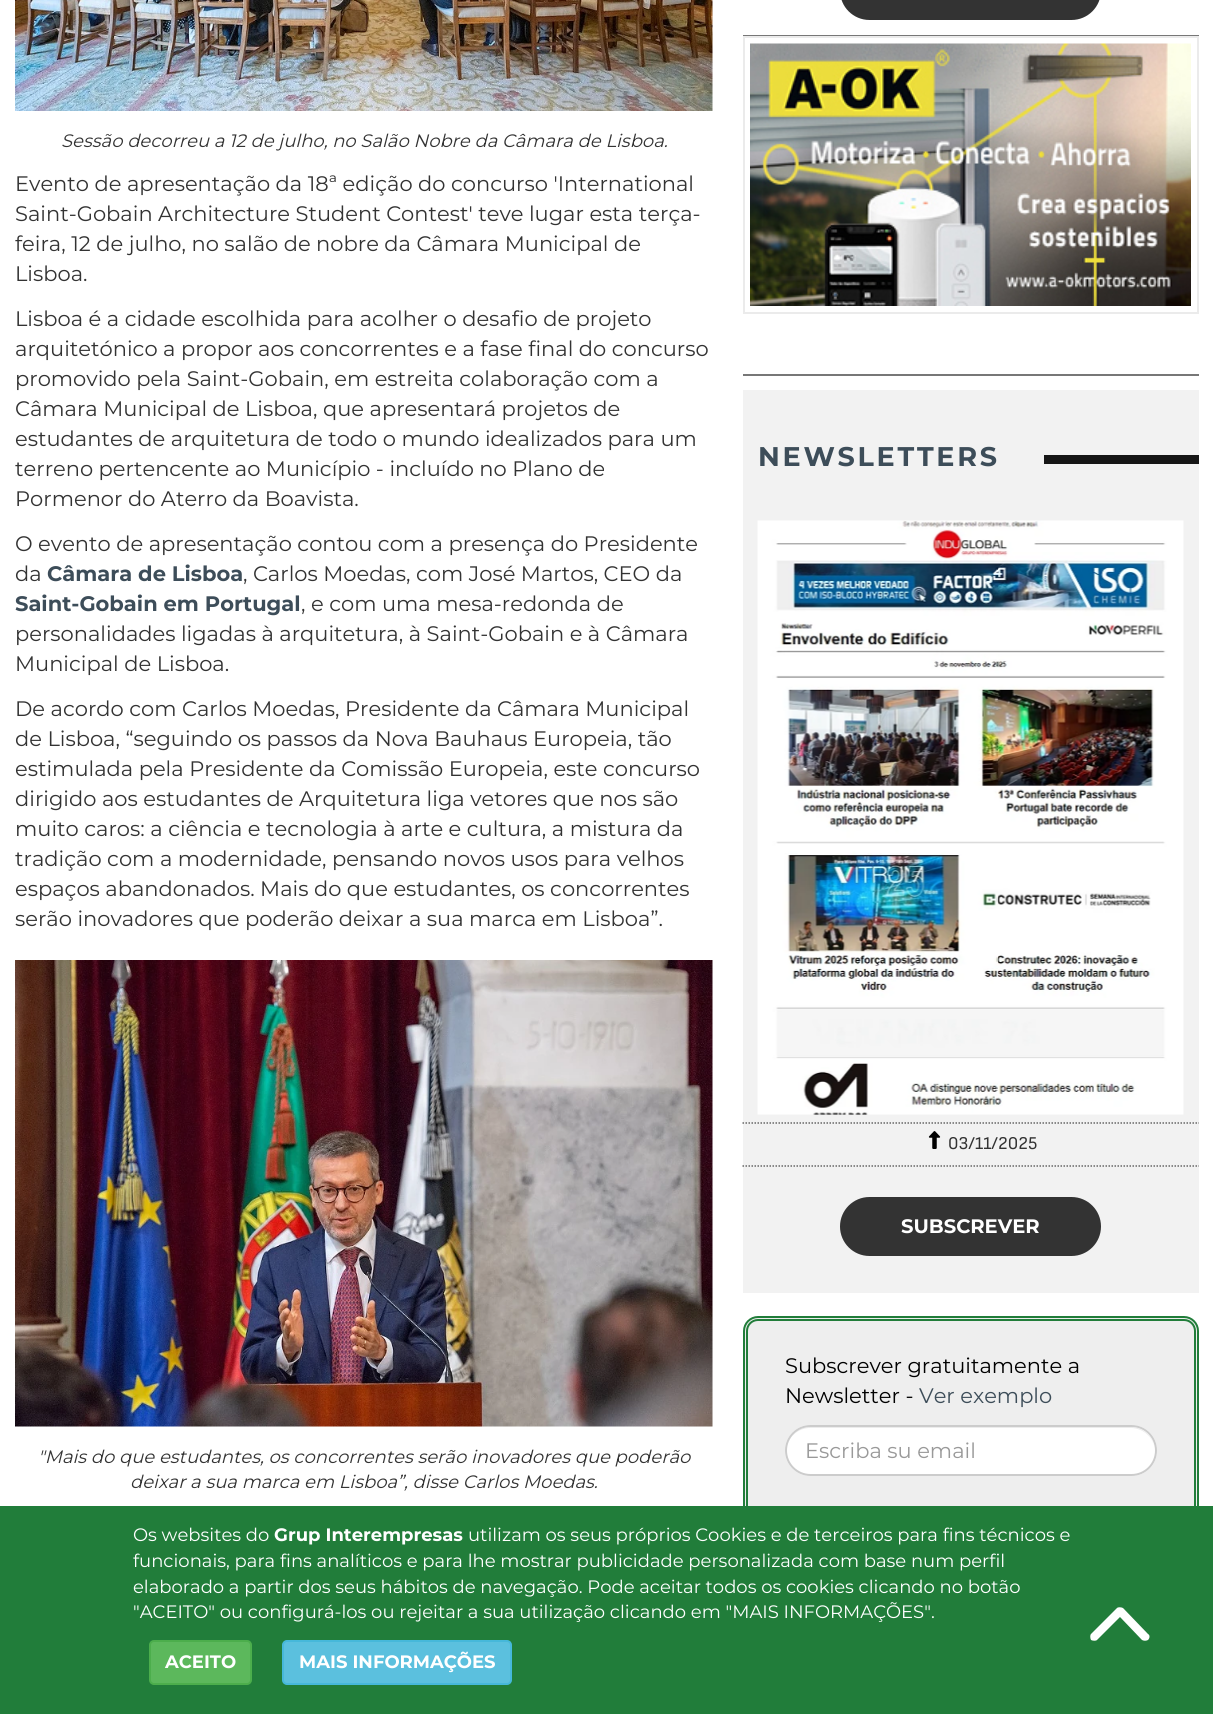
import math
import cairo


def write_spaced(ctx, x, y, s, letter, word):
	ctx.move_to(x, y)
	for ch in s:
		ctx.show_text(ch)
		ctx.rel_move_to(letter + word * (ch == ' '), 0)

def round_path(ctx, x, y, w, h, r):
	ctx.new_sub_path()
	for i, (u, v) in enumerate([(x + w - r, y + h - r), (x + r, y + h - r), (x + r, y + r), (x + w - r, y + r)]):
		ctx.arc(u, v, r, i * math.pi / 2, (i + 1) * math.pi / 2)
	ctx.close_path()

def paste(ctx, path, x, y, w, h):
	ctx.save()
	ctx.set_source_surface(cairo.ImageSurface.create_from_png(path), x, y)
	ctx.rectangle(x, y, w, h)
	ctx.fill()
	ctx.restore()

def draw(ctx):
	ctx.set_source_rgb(1, 1, 1)
	ctx.paint()
	paste(ctx, 'media/1.png', 15, 0, 698, 111)
	ctx.select_font_face('Montserrat', cairo.FONT_SLANT_ITALIC)
	ctx.set_font_size(18)
	ctx.set_source_rgb(0.2, 0.2, 0.2)
	ctx.move_to(61, 147)
	ctx.show_text('Sessão decorreu a 12 de julho, no Salão Nobre da Câmara de Lisboa.')
	ctx.select_font_face('Montserrat')
	ctx.set_font_size(21)
	for x, y, s in [
		(15, 191, 'Evento de apresentação da 18ª edição do concurso \'International'),
		(15, 221, 'Saint-Gobain Architecture Student Contest\' teve lugar esta terça-'),
		(15, 251, 'feira, 12 de julho, no salão de nobre da Câmara Municipal de'),
		(15, 281, 'Lisboa.'),
		(15, 326, 'Lisboa é a cidade escolhida para acolher o desafio de projeto'),
		(15, 356, 'arquitetónico a propor aos concorrentes e a fase final do concurso'),
		(15, 386, 'promovido pela Saint-Gobain, em estreita colaboração com a'),
		(15, 416, 'Câmara Municipal de Lisboa, que apresentará projetos de'),
		(15, 446, 'estudantes de arquitetura de todo o mundo idealizados para um'),
		(15, 476, 'terreno pertencente ao Município - incluído no Plano de'),
		(15, 506, 'Pormenor do Aterro da Boavista.'),
		(15, 551, 'O evento de apresentação contou com a presença do Presidente'),
		(15, 581, 'da'),
	]:
		ctx.move_to(x, y)
		ctx.show_text(s)
	ctx.select_font_face('Montserrat', cairo.FONT_SLANT_NORMAL, cairo.FONT_WEIGHT_BOLD)
	ctx.set_source_rgb(0.239, 0.302, 0.349)
	ctx.move_to(47, 581)
	ctx.show_text('Câmara de Lisboa')
	ctx.select_font_face('Montserrat')
	ctx.set_source_rgb(0.2, 0.2, 0.2)
	ctx.move_to(243, 581)
	ctx.show_text(', Carlos Moedas, com José Martos, CEO da')
	ctx.select_font_face('Montserrat', cairo.FONT_SLANT_NORMAL, cairo.FONT_WEIGHT_BOLD)
	ctx.set_source_rgb(0.239, 0.302, 0.349)
	ctx.move_to(15, 611)
	ctx.show_text('Saint-Gobain em Portugal')
	ctx.select_font_face('Montserrat')
	ctx.set_source_rgb(0.2, 0.2, 0.2)
	for x, y, s in [
		(301, 611, ', e com uma mesa-redonda de'),
		(15, 641, 'personalidades ligadas à arquitetura, à Saint-Gobain e à Câmara'),
		(15, 671, 'Municipal de Lisboa.'),
		(15, 716, 'De acordo com Carlos Moedas, Presidente da Câmara Municipal'),
		(15, 746, 'de Lisboa, “seguindo os passos da Nova Bauhaus Europeia, tão'),
		(15, 776, 'estimulada pela Presidente da Comissão Europeia, este concurso'),
		(15, 806, 'dirigido aos estudantes de Arquitetura liga vetores que nos são'),
		(15, 836, 'muito caros: a ciência e tecnologia à arte e cultura, a mistura da'),
		(15, 866, 'tradição com a modernidade, pensando novos usos para velhos'),
		(15, 896, 'espaços abandonados. Mais do que estudantes, os concorrentes'),
		(15, 926, 'serão inovadores que poderão deixar a sua marca em Lisboa”.'),
	]:
		ctx.move_to(x, y)
		ctx.show_text(s)
	paste(ctx, 'media/2.png', 15, 960, 698, 467)
	ctx.select_font_face('Montserrat', cairo.FONT_SLANT_ITALIC)
	ctx.set_font_size(18)
	ctx.move_to(38, 1463)
	ctx.show_text('"Mais do que estudantes, os concorrentes serão inovadores que poderão')
	ctx.move_to(130, 1488)
	ctx.show_text('deixar a sua marca em Lisboa”, disse Carlos Moedas.')
	round_path(ctx, 840, -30, 261, 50, 29.5)
	ctx.fill()
	ctx.set_source_rgb(0.467, 0.467, 0.467)
	ctx.rectangle(743, 35, 456, 1)
	ctx.fill()
	ctx.rectangle(743, 374, 456, 2)
	ctx.fill()
	ctx.rectangle(744, 37, 454, 276)
	ctx.set_source_rgb(0.918, 0.918, 0.918)
	ctx.stroke()
	paste(ctx, 'media/3.png', 750, 43, 441, 263)
	ctx.set_source_rgb(0.949, 0.949, 0.949)
	ctx.rectangle(743, 390, 456, 903)
	ctx.fill()
	ctx.select_font_face('Montserrat', cairo.FONT_SLANT_NORMAL, cairo.FONT_WEIGHT_BOLD)
	ctx.set_font_size(27)
	ctx.set_source_rgb(0.239, 0.302, 0.349)
	write_spaced(ctx, 758, 466, 'NEWSLETTERS', 2.75, 0)
	ctx.set_source_rgb(0.086, 0.086, 0.086)
	ctx.rectangle(1044, 455, 155, 9)
	ctx.fill()
	paste(ctx, 'media/4.png', 757, 520, 427, 595)
	ctx.new_path()
	ctx.move_to(742.5, 1123)
	ctx.line_to(1198.5, 1123)
	ctx.set_source_rgb(0.4, 0.4, 0.4)
	ctx.set_line_width(1.5)
	ctx.set_dash([1.5, 1.5])
	ctx.stroke()
	ctx.new_path()
	ctx.move_to(742.5, 1166)
	ctx.line_to(1198.5, 1166)
	ctx.stroke()
	paste(ctx, 'media/5.png', 928, 1131, 13, 18)
	ctx.select_font_face('Sofia Sans')
	ctx.set_font_size(18)
	ctx.set_source_rgb(0.2, 0.2, 0.2)
	ctx.move_to(948, 1149)
	ctx.show_text('03/11/2025')
	ctx.save()
	ctx.rectangle(743, 521, 456, 661)
	ctx.clip()
	ctx.new_path()
	ctx.move_to(1198.5, 1123)
	ctx.line_to(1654.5, 1123)
	ctx.move_to(1198.5, 1166)
	ctx.line_to(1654.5, 1166)
	ctx.set_source_rgb(0.4, 0.4, 0.4)
	ctx.stroke()
	ctx.restore()
	round_path(ctx, 840, 1197, 261, 59, 29.5)
	ctx.fill()
	ctx.select_font_face('Montserrat', cairo.FONT_SLANT_NORMAL, cairo.FONT_WEIGHT_BOLD)
	ctx.set_font_size(19.5)
	ctx.set_source_rgb(1, 1, 1)
	ctx.move_to(901, 1233)
	ctx.show_text('SUBSCREVER')
	ctx.set_source_rgb(0.933, 0.933, 0.933)
	round_path(ctx, 744, 1317, 454, 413, 14)
	ctx.fill_preserve()
	ctx.set_source_rgb(0.129, 0.49, 0.227)
	ctx.set_line_width(2)
	ctx.set_dash([])
	ctx.stroke()
	round_path(ctx, 747, 1320, 448, 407, 11)
	ctx.stroke()
	ctx.select_font_face('Montserrat')
	ctx.set_font_size(21)
	ctx.set_source_rgb(0, 0, 0)
	ctx.move_to(785, 1373)
	ctx.show_text('Subscrever gratuitamente a')
	ctx.move_to(785, 1403)
	ctx.show_text('Newsletter -')
	ctx.set_source_rgb(0.239, 0.302, 0.349)
	ctx.move_to(919, 1403)
	ctx.show_text('Ver exemplo')
	ctx.set_source_rgb(1, 1, 1)
	round_path(ctx, 785, 1425, 372, 51, 25.5)
	ctx.fill()
	ctx.set_source_rgb(0.925, 0.925, 0.925)
	ctx.new_path()
	ctx.move_to(810, 1428)
	ctx.line_to(1131, 1428)
	ctx.curve_to(1144, 1428, 1155, 1439, 1155, 1452)
	ctx.curve_to(1155, 1438, 1144, 1427, 1131, 1427)
	ctx.line_to(810, 1427)
	ctx.curve_to(797, 1427, 786, 1438, 786, 1452)
	ctx.curve_to(786, 1439, 797, 1428, 810, 1428)
	ctx.close_path()
	ctx.fill()
	round_path(ctx, 786, 1426, 370, 49, 24.5)
	ctx.set_source_rgb(0.8, 0.8, 0.8)
	ctx.stroke()
	ctx.set_source_rgb(0.6, 0.6, 0.6)
	ctx.move_to(805, 1458)
	ctx.show_text('Escriba su email')
	ctx.set_source_rgb(0.129, 0.49, 0.227)
	ctx.rectangle(0, 1506, 1213, 208)
	ctx.fill()
	ctx.set_font_size(18)
	ctx.set_source_rgb(1, 1, 1)
	ctx.move_to(133, 1541)
	ctx.show_text('Os websites do')
	ctx.select_font_face('Montserrat', cairo.FONT_SLANT_NORMAL, cairo.FONT_WEIGHT_BOLD)
	ctx.move_to(274, 1541)
	ctx.show_text('Grup Interempresas')
	ctx.select_font_face('Montserrat')
	for x, y, s in [
		(468, 1541, 'utilizam os seus próprios Cookies e de terceiros para fins técnicos e'),
		(133, 1567, 'funcionais, para fins analíticos e para lhe mostrar publicidade personalizada com base num perfil'),
		(133, 1593, 'elaborado a partir dos seus hábitos de navegação. Pode aceitar todos os cookies clicando no botão'),
		(133, 1618, '"ACEITO" ou configurá-los ou rejeitar a sua utilização clicando em "MAIS INFORMAÇÕES".'),
	]:
		ctx.move_to(x, y)
		ctx.show_text(s)
	ctx.set_source_rgb(0.361, 0.722, 0.361)
	round_path(ctx, 150, 1641, 101, 43, 4)
	ctx.fill_preserve()
	ctx.set_source_rgb(0.298, 0.682, 0.298)
	ctx.stroke()
	ctx.select_font_face('Montserrat', cairo.FONT_SLANT_NORMAL, cairo.FONT_WEIGHT_BOLD)
	ctx.set_source_rgb(1, 1, 1)
	ctx.move_to(165, 1668)
	ctx.show_text('ACEITO')
	ctx.set_source_rgb(0.357, 0.753, 0.871)
	round_path(ctx, 283, 1641, 228, 43, 4)
	ctx.fill_preserve()
	ctx.set_source_rgb(0.275, 0.722, 0.855)
	ctx.stroke()
	ctx.set_source_rgb(1, 1, 1)
	ctx.move_to(299, 1668)
	ctx.show_text('MAIS INFORMAÇÕES')
	ctx.new_path()
	ctx.move_to(1117, 1608)
	ctx.curve_to(1118, 1607, 1121, 1607, 1123, 1608)
	ctx.line_to(1148, 1634)
	ctx.curve_to(1150, 1635, 1150, 1638, 1148, 1640)
	ctx.curve_to(1146, 1641, 1144, 1641, 1142, 1640)
	ctx.line_to(1120, 1617)
	ctx.line_to(1097, 1640)
	ctx.curve_to(1096, 1641, 1093, 1641, 1091, 1640)
	ctx.curve_to(1090, 1638, 1090, 1635, 1091, 1634)
	ctx.close_path()
	ctx.fill()


surface = cairo.ImageSurface(cairo.FORMAT_RGB24, 1213, 1714)
ctx = cairo.Context(surface)
options = cairo.FontOptions()
options.set_hint_metrics(cairo.HINT_METRICS_OFF)
options.set_hint_style(cairo.HINT_STYLE_NONE)
ctx.set_font_options(options)
ctx.set_miter_limit(4)
draw(ctx)
surface.write_to_png('image.png')
